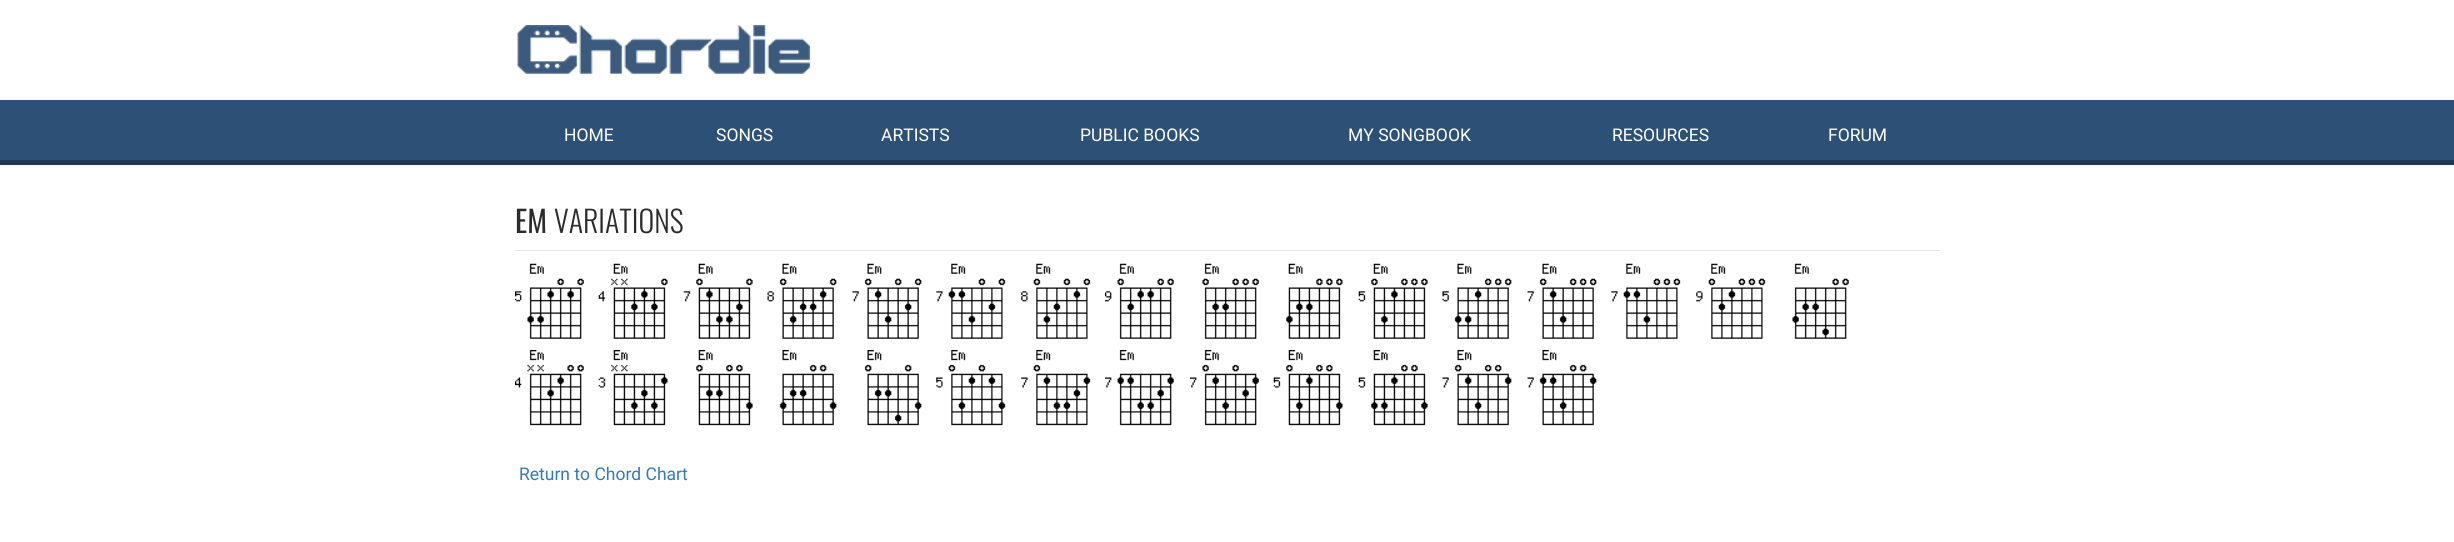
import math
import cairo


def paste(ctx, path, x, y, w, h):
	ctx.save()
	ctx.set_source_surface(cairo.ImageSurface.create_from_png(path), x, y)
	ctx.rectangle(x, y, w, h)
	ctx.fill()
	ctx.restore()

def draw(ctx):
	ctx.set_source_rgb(1, 1, 1)
	ctx.paint()
	paste(ctx, 'media/1.png', 517, 25, 294, 49)
	ctx.set_source_rgb(0.176, 0.314, 0.467)
	ctx.rectangle(0, 100, 2454, 60)
	ctx.fill()
	ctx.set_source_rgb(0.122, 0.22, 0.325)
	ctx.rectangle(0, 160, 2454, 5)
	ctx.fill()
	ctx.select_font_face('Roboto')
	ctx.set_font_size(17.5)
	ctx.set_source_rgb(1, 1, 1)
	for x, y, s in [
		(564, 141, 'HOME'),
		(716, 141, 'SONGS'),
		(881, 141, 'ARTISTS'),
		(1080, 141, 'PUBLIC BOOKS'),
		(1348, 141, 'MY SONGBOOK'),
		(1612, 141, 'RESOURCES'),
		(1828, 141, 'FORUM'),
	]:
		ctx.move_to(x, y)
		ctx.show_text(s)
	ctx.set_source_rgb(0.898, 0.898, 0.898)
	ctx.rectangle(515, 250, 1425, 1)
	ctx.fill()
	ctx.select_font_face('Oswald')
	ctx.set_font_size(30)
	ctx.set_source_rgb(0.169, 0.169, 0.169)
	ctx.move_to(515, 233)
	ctx.show_text('EM')
	ctx.select_font_face('Oswald Light')
	ctx.move_to(554, 233)
	ctx.show_text('VARIATIONS')
	paste(ctx, 'media/2.png', 515, 263, 69, 76)
	paste(ctx, 'media/3.png', 598, 263, 70, 76)
	paste(ctx, 'media/4.png', 683, 263, 70, 76)
	paste(ctx, 'media/5.png', 767, 263, 70, 76)
	paste(ctx, 'media/6.png', 852, 263, 70, 76)
	paste(ctx, 'media/7.png', 936, 263, 70, 76)
	paste(ctx, 'media/8.png', 1021, 263, 70, 76)
	paste(ctx, 'media/9.png', 1105, 263, 69, 76)
	paste(ctx, 'media/10.png', 1202, 263, 57, 76)
	paste(ctx, 'media/11.png', 1286, 263, 57, 76)
	paste(ctx, 'media/12.png', 1358, 263, 70, 76)
	paste(ctx, 'media/13.png', 1442, 263, 70, 76)
	paste(ctx, 'media/14.png', 1527, 263, 70, 76)
	paste(ctx, 'media/15.png', 1611, 263, 70, 76)
	paste(ctx, 'media/16.png', 1696, 263, 70, 76)
	paste(ctx, 'media/17.png', 1792, 263, 57, 76)
	paste(ctx, 'media/18.png', 515, 350, 69, 76)
	paste(ctx, 'media/19.png', 598, 350, 70, 76)
	paste(ctx, 'media/20.png', 696, 350, 57, 76)
	paste(ctx, 'media/21.png', 779, 350, 58, 76)
	paste(ctx, 'media/22.png', 864, 350, 58, 76)
	paste(ctx, 'media/23.png', 936, 350, 70, 76)
	paste(ctx, 'media/24.png', 1021, 350, 70, 76)
	paste(ctx, 'media/25.png', 1105, 350, 69, 76)
	paste(ctx, 'media/26.png', 1190, 350, 69, 76)
	paste(ctx, 'media/27.png', 1273, 350, 70, 76)
	paste(ctx, 'media/28.png', 1358, 350, 70, 76)
	paste(ctx, 'media/29.png', 1442, 350, 70, 76)
	paste(ctx, 'media/30.png', 1527, 350, 70, 76)
	ctx.select_font_face('Roboto')
	ctx.set_font_size(17.5)
	ctx.set_source_rgb(0.2, 0.478, 0.718)
	ctx.move_to(519, 480)
	ctx.show_text('Return to Chord Chart')


surface = cairo.ImageSurface(cairo.FORMAT_RGB24, 2454, 542)
ctx = cairo.Context(surface)
options = cairo.FontOptions()
options.set_hint_metrics(cairo.HINT_METRICS_OFF)
options.set_hint_style(cairo.HINT_STYLE_NONE)
ctx.set_font_options(options)
ctx.set_miter_limit(4)
draw(ctx)
surface.write_to_png('image.png')
